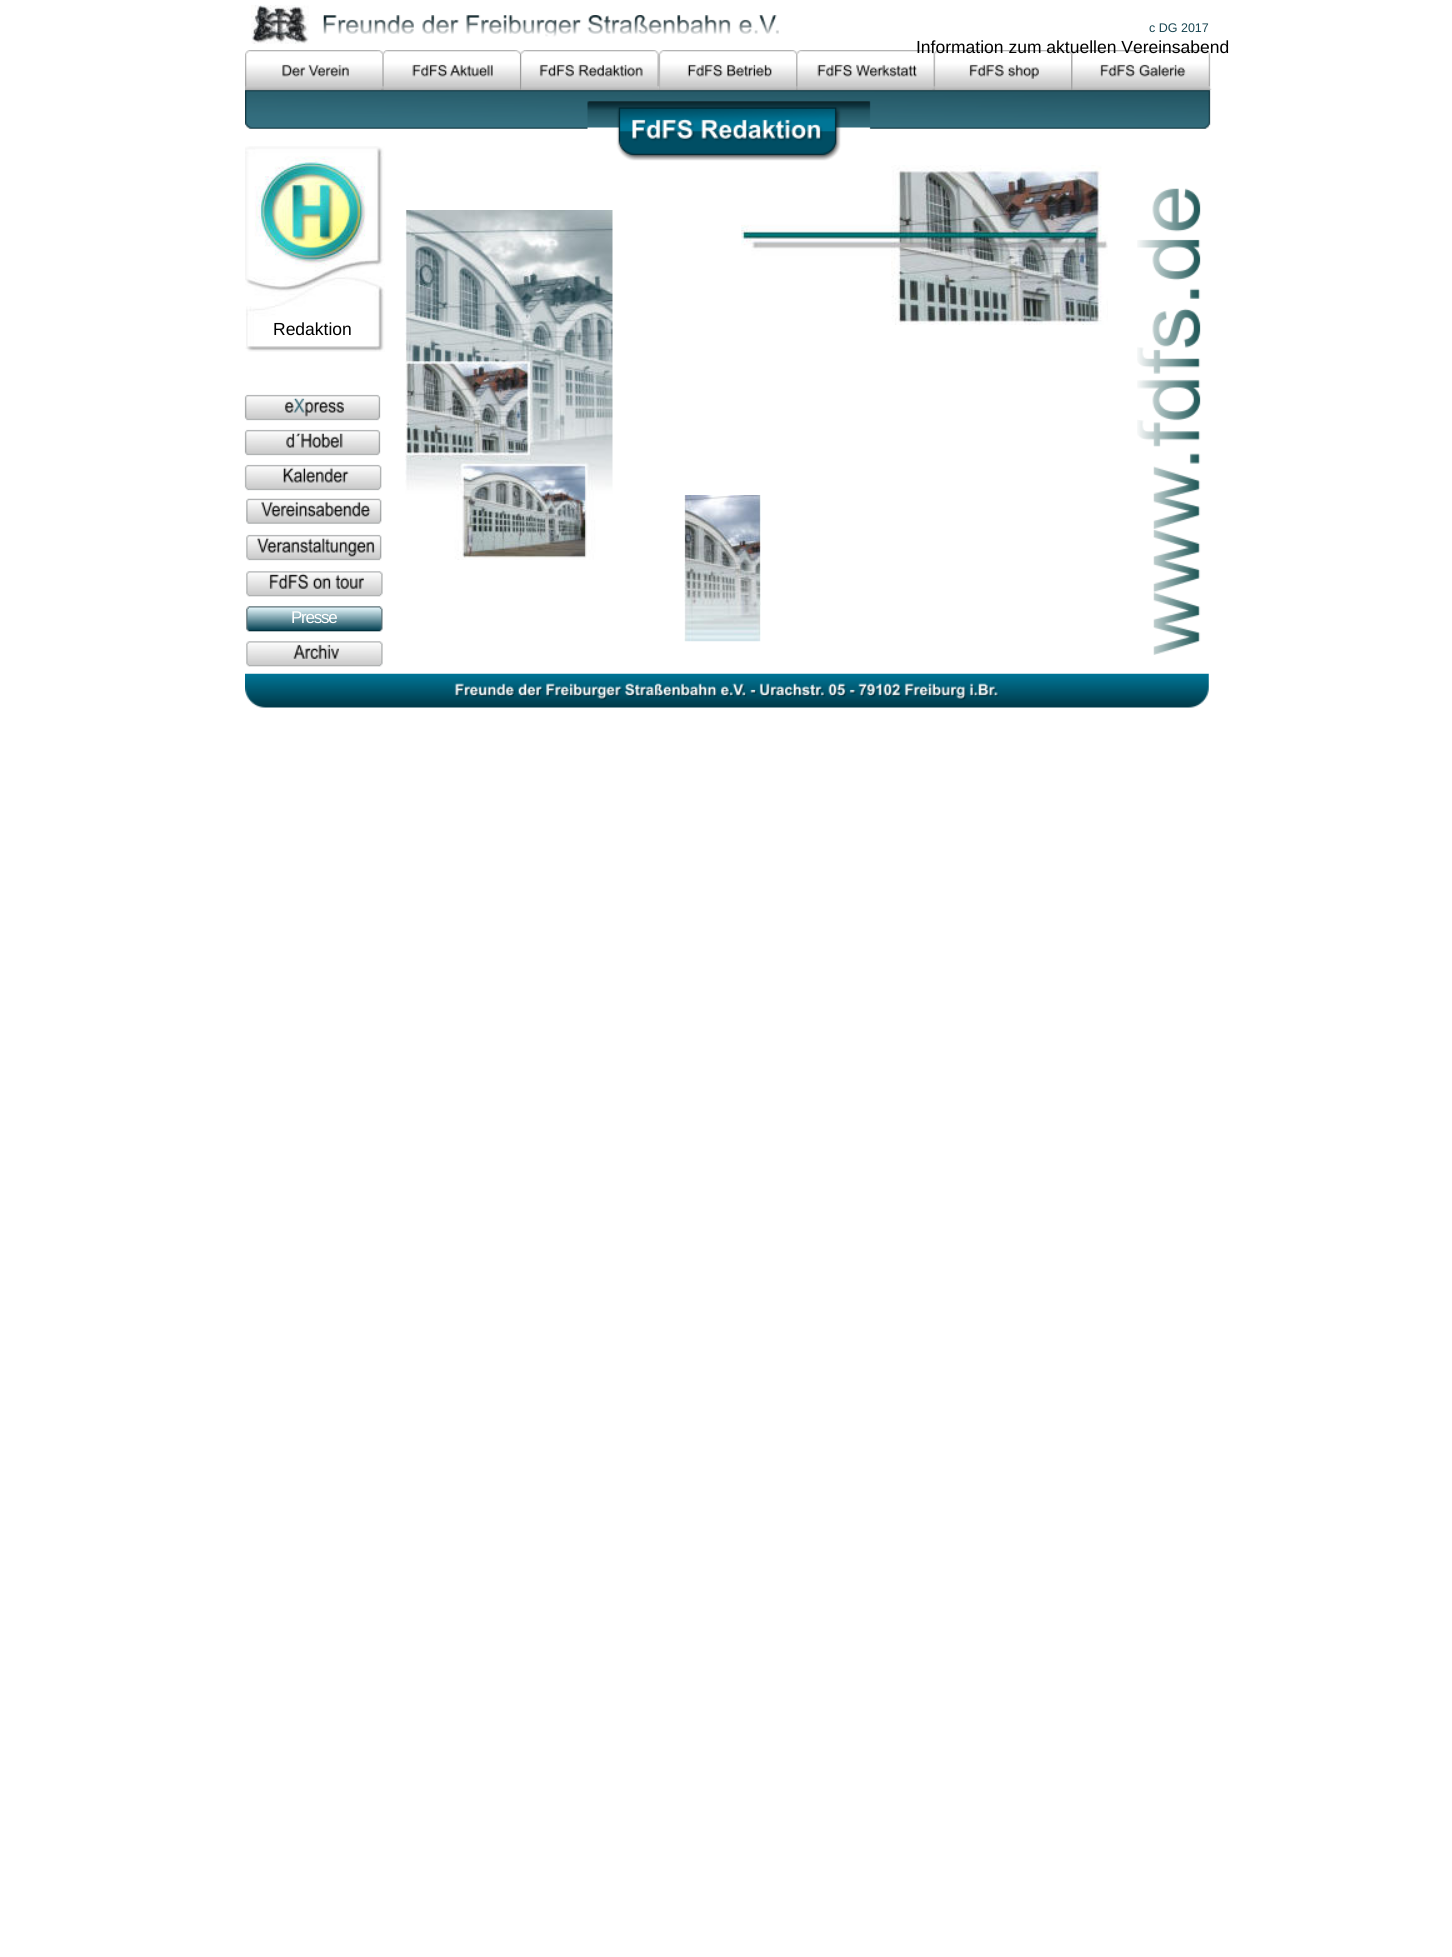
import math
import cairo


def write_spaced(ctx, x, y, s, letter, word):
	ctx.move_to(x, y)
	for ch in s:
		ctx.show_text(ch)
		ctx.rel_move_to(letter + word * (ch == ' '), 0)

def paste(ctx, path, x, y, w, h):
	ctx.save()
	ctx.set_source_surface(cairo.ImageSurface.create_from_png(path), x, y)
	ctx.rectangle(x, y, w, h)
	ctx.fill()
	ctx.restore()

def draw(ctx):
	ctx.set_source_rgb(1, 1, 1)
	ctx.paint()
	paste(ctx, 'media/1.png', 251, 5, 58, 39)
	paste(ctx, 'media/2.png', 323, 15, 456, 22)
	ctx.select_font_face('Liberation Sans')
	ctx.set_font_size(12.5)
	ctx.set_source_rgb(0.094, 0.271, 0.318)
	ctx.move_to(1149, 32)
	ctx.show_text('c DG 2017')
	paste(ctx, 'media/11.png', 245, 146, 140, 206)
	paste(ctx, 'media/10.png', 245, 89, 966, 72)
	paste(ctx, 'media/3.png', 245, 50, 139, 40)
	paste(ctx, 'media/4.png', 381, 50, 141, 40)
	paste(ctx, 'media/5.png', 520, 50, 140, 40)
	paste(ctx, 'media/6.png', 658, 50, 140, 40)
	paste(ctx, 'media/7.png', 796, 50, 139, 40)
	paste(ctx, 'media/8.png', 932, 50, 141, 40)
	paste(ctx, 'media/9.png', 1071, 50, 141, 40)
	ctx.set_font_size(17.5)
	ctx.set_source_rgb(0, 0, 0)
	ctx.move_to(916, 53)
	ctx.show_text('Information zum aktuellen Vereinsabend')
	paste(ctx, 'media/12.png', 405, 210, 208, 350)
	paste(ctx, 'media/13.png', 741, 165, 367, 160)
	paste(ctx, 'media/14.png', 1137, 188, 64, 467)
	ctx.move_to(273, 335)
	ctx.show_text('Redaktion')
	paste(ctx, 'media/15.png', 244, 394, 137, 27)
	paste(ctx, 'media/16.png', 244, 429, 137, 27)
	paste(ctx, 'media/17.png', 244, 464, 138, 27)
	paste(ctx, 'media/18.png', 246, 498, 136, 26)
	paste(ctx, 'media/19.png', 684, 495, 77, 147)
	paste(ctx, 'media/20.png', 246, 534, 136, 27)
	paste(ctx, 'media/21.png', 246, 571, 137, 26)
	paste(ctx, 'media/22.png', 246, 606, 137, 26)
	ctx.set_font_size(17)
	ctx.set_source_rgb(1, 1, 1)
	write_spaced(ctx, 291, 623, 'Presse', -1.25, 0)
	paste(ctx, 'media/23.png', 246, 641, 137, 26)
	paste(ctx, 'media/24.png', 245, 673, 964, 35)


surface = cairo.ImageSurface(cairo.FORMAT_RGB24, 1452, 1957)
ctx = cairo.Context(surface)
options = cairo.FontOptions()
options.set_hint_metrics(cairo.HINT_METRICS_OFF)
options.set_hint_style(cairo.HINT_STYLE_NONE)
ctx.set_font_options(options)
ctx.set_miter_limit(4)
draw(ctx)
surface.write_to_png('image.png')
